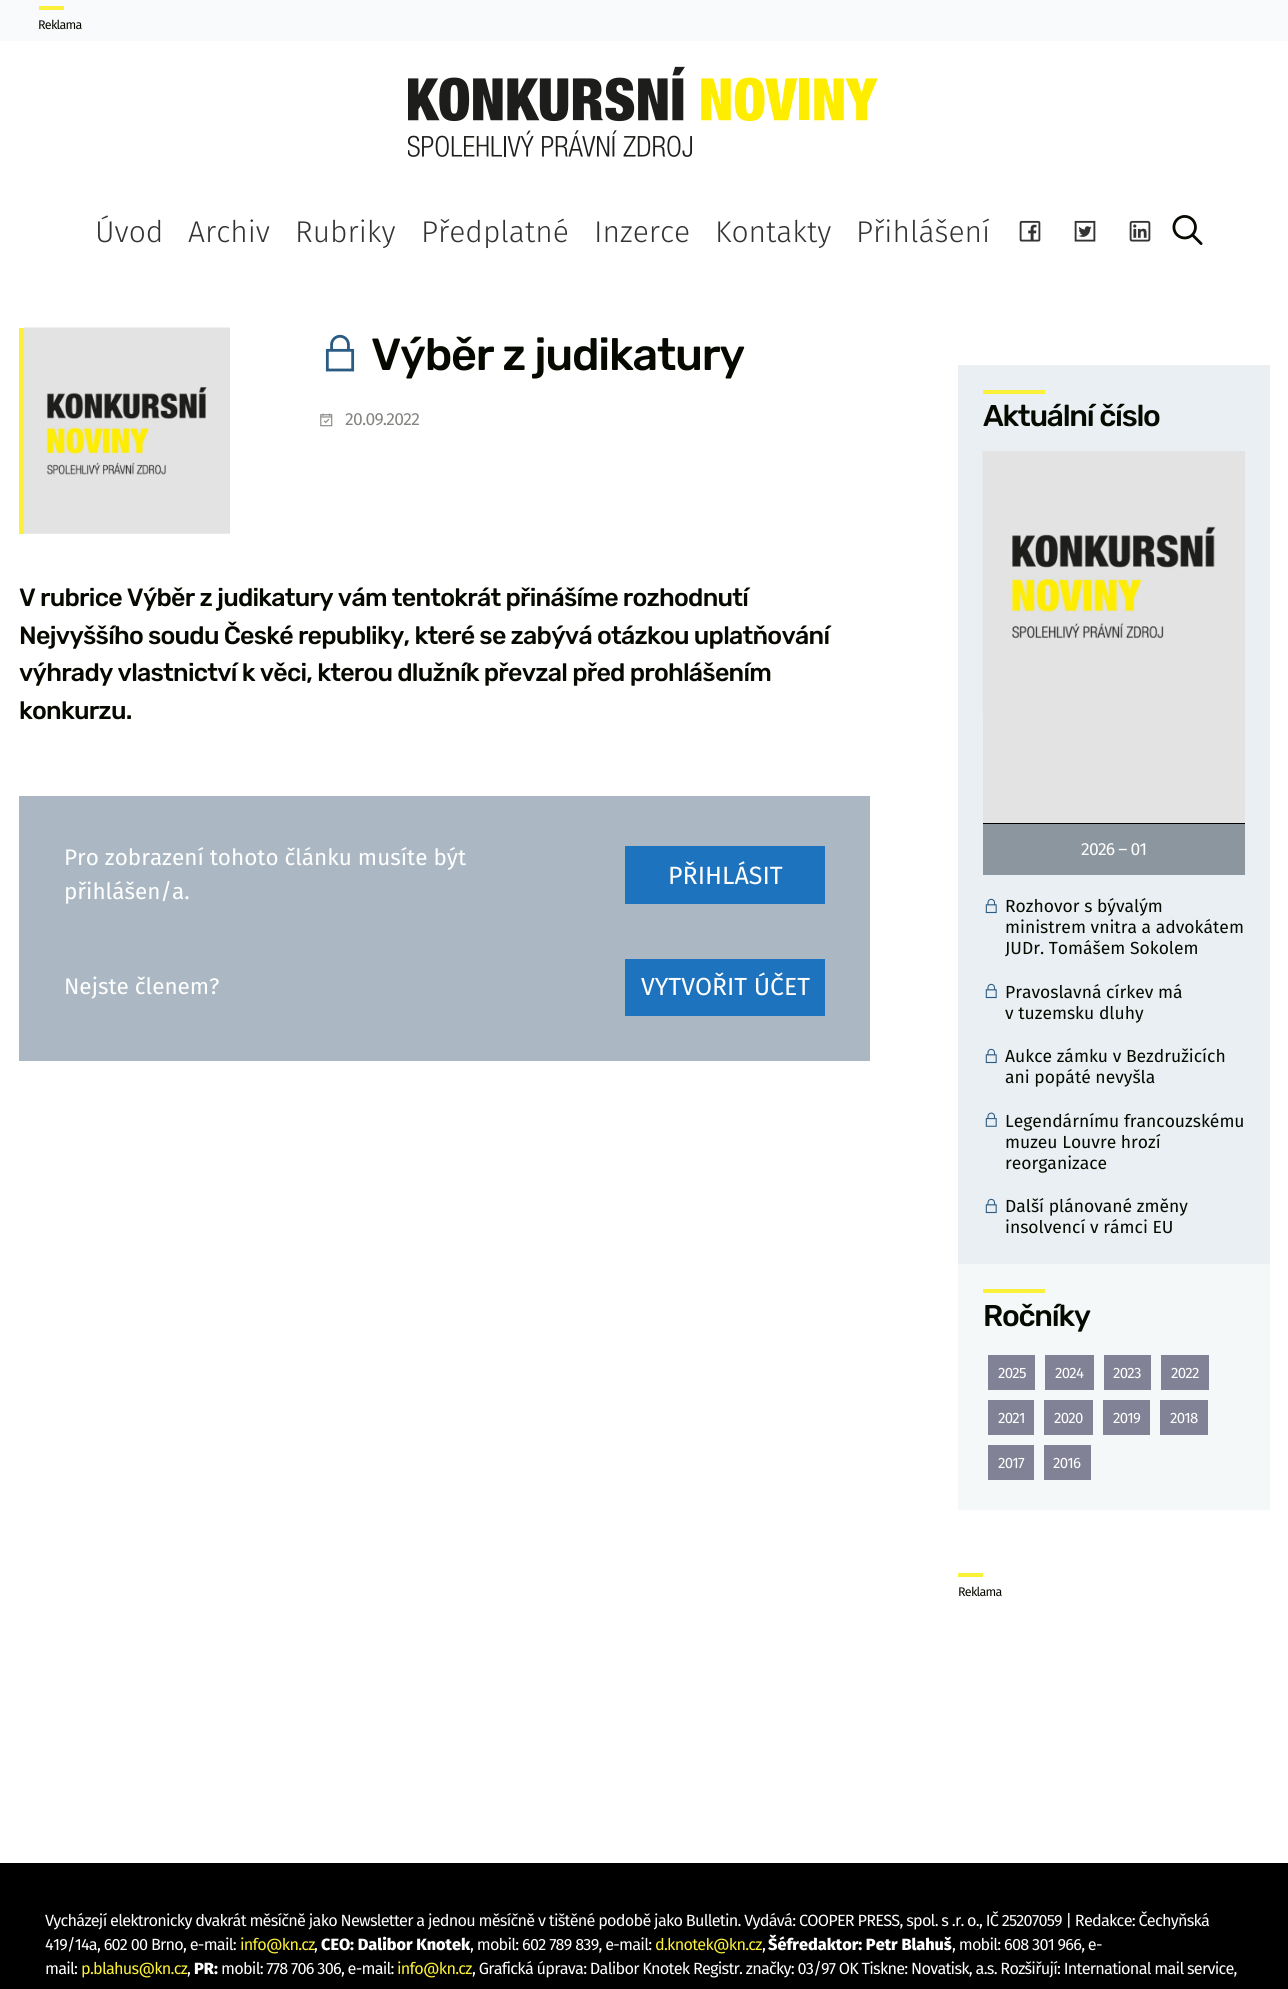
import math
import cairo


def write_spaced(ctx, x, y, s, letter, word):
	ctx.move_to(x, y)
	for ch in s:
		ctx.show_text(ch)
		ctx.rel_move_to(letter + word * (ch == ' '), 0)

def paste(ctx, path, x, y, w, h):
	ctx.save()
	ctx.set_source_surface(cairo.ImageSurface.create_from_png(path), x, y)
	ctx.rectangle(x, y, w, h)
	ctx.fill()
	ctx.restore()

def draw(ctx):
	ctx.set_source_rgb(1, 1, 1)
	ctx.paint()
	ctx.set_source_rgb(0.976, 0.98, 0.984)
	ctx.rectangle(0, 0, 1288, 41)
	ctx.fill()
	ctx.set_source_rgb(0.984, 0.945, 0.22)
	ctx.rectangle(39, 6, 25, 4)
	ctx.fill()
	ctx.select_font_face('Fira Sans')
	ctx.set_font_size(12.5)
	ctx.set_source_rgb(0.024, 0.039, 0)
	write_spaced(ctx, 38, 29, 'Reklama', -0.75, 0)
	paste(ctx, 'media/1.png', 408, 66, 470, 91)
	ctx.select_font_face('Fira Sans Light')
	ctx.set_font_size(30)
	ctx.set_source_rgb(0.2, 0.2, 0.2)
	for x, y, s in [
		(95, 242, 'Úvod'),
		(188, 242, 'Archiv'),
		(295, 242, 'Rubriky'),
		(421, 242, 'Předplatné'),
		(594, 242, 'Inzerce'),
		(715, 242, 'Kontakty'),
		(856, 242, 'Přihlášení'),
	]:
		ctx.move_to(x, y)
		ctx.show_text(s)
	paste(ctx, 'media/2.png', 1019, 220, 22, 22)
	paste(ctx, 'media/3.png', 1074, 220, 22, 22)
	paste(ctx, 'media/4.png', 1129, 220, 22, 22)
	paste(ctx, 'media/5.png', 1172, 215, 31, 30)
	ctx.set_source_rgb(0.984, 0.945, 0.22)
	ctx.rectangle(19, 328, 5, 206)
	ctx.fill()
	paste(ctx, 'media/6.png', 23, 327, 207, 207)
	paste(ctx, 'media/7.png', 325, 334, 30, 38)
	ctx.select_font_face('Rubik Light')
	ctx.set_font_size(45)
	ctx.set_source_rgb(0.024, 0.039, 0)
	write_spaced(ctx, 371, 370, 'Výběr z judikatury', -1.25, 0)
	paste(ctx, 'media/8.png', 320, 413, 13, 14)
	ctx.select_font_face('Fira Sans')
	ctx.set_font_size(17.5)
	ctx.set_source_rgb(0.514, 0.522, 0.502)
	write_spaced(ctx, 345, 425, '20.09.2022', -0.75, 0)
	ctx.select_font_face('Rubik Light')
	ctx.set_font_size(25)
	ctx.set_source_rgb(0.024, 0.039, 0)
	for x, y, s in [
		(19, 606, 'V rubrice Výběr z judikatury vám tentokrát přinášíme rozhodnutí'),
		(19, 644, 'Nejvyššího soudu České republiky, které se zabývá otázkou uplatňování'),
		(19, 681, 'výhrady vlastnictví k věci, kterou dlužník převzal před prohlášením'),
		(19, 719, 'konkurzu.'),
	]:
		write_spaced(ctx, x, y, s, -0.75, 0)
	ctx.set_source_rgb(0.671, 0.722, 0.765)
	ctx.rectangle(19, 796, 851, 265)
	ctx.fill()
	ctx.select_font_face('Fira Sans')
	ctx.set_font_size(22.5)
	ctx.set_source_rgb(1, 1, 1)
	ctx.move_to(64, 865)
	ctx.show_text('Pro zobrazení tohoto článku musíte být')
	ctx.set_source_rgb(0.118, 0.451, 0.745)
	ctx.rectangle(625, 846, 200, 58)
	ctx.fill()
	ctx.set_font_size(25)
	ctx.set_source_rgb(1, 1, 1)
	ctx.move_to(668, 884)
	ctx.show_text('PŘIHLÁSIT')
	ctx.set_font_size(22.5)
	ctx.move_to(64, 899)
	ctx.show_text('přihlášen/a.')
	ctx.move_to(64, 994)
	ctx.show_text('Nejste členem?')
	ctx.set_source_rgb(0.118, 0.451, 0.745)
	ctx.rectangle(625, 959, 200, 57)
	ctx.fill()
	ctx.set_font_size(24.75)
	ctx.set_source_rgb(1, 1, 1)
	ctx.move_to(641, 995)
	ctx.show_text('VYTVOŘIT ÚČET')
	ctx.set_source_rgb(0.914, 0.937, 0.949)
	ctx.rectangle(958, 365, 312, 899)
	ctx.fill()
	ctx.set_source_rgb(0.984, 0.945, 0.22)
	ctx.rectangle(983, 390, 62, 4)
	ctx.fill()
	ctx.select_font_face('Rubik Light')
	ctx.set_font_size(30)
	ctx.set_source_rgb(0.024, 0.039, 0)
	write_spaced(ctx, 983, 426, 'Aktuální číslo', -1.25, 0)
	ctx.set_source_rgb(0.89, 0.89, 0.89)
	ctx.rectangle(983, 451, 262, 372)
	ctx.fill()
	paste(ctx, 'media/9.png', 982, 451, 234, 263)
	ctx.set_source_rgb(0.549, 0.588, 0.624)
	ctx.rectangle(983, 824, 262, 51)
	ctx.fill()
	ctx.set_source_rgb(0, 0, 0)
	ctx.rectangle(983, 823, 262, 1)
	ctx.fill()
	ctx.select_font_face('Fira Sans')
	ctx.set_font_size(17.5)
	ctx.set_source_rgb(1, 1, 1)
	write_spaced(ctx, 1081, 855, '2026 – 01', -0.75, 0)
	paste(ctx, 'media/10.png', 985, 898, 12, 16)
	ctx.set_source_rgb(0.024, 0.039, 0)
	for x, y, s in [
		(1005, 912, 'Rozhovor s bývalým'),
		(1005, 933, 'ministrem vnitra a advokátem'),
		(1005, 954, 'JUDr. Tomášem Sokolem'),
	]:
		ctx.move_to(x, y)
		ctx.show_text(s)
	paste(ctx, 'media/10.png', 985, 983, 12, 16)
	ctx.move_to(1005, 998)
	ctx.show_text('Pravoslavná církev má')
	ctx.move_to(1005, 1019)
	ctx.show_text('v tuzemsku dluhy')
	paste(ctx, 'media/10.png', 985, 1048, 12, 16)
	ctx.move_to(1005, 1062)
	ctx.show_text('Aukce zámku v Bezdružicích')
	ctx.move_to(1005, 1083)
	ctx.show_text('ani popáté nevyšla')
	paste(ctx, 'media/11.png', 985, 1112, 12, 15)
	for x, y, s in [
		(1005, 1127, 'Legendárnímu francouzskému'),
		(1005, 1148, 'muzeu Louvre hrozí'),
		(1005, 1169, 'reorganizace'),
	]:
		ctx.move_to(x, y)
		ctx.show_text(s)
	paste(ctx, 'media/10.png', 985, 1198, 12, 16)
	ctx.move_to(1005, 1212)
	ctx.show_text('Další plánované změny')
	ctx.move_to(1005, 1233)
	ctx.show_text('insolvencí v rámci EU')
	ctx.set_source_rgb(0.957, 0.969, 0.973)
	ctx.rectangle(958, 1264, 312, 246)
	ctx.fill()
	ctx.set_source_rgb(0.984, 0.945, 0.22)
	ctx.rectangle(983, 1289, 62, 4)
	ctx.fill()
	ctx.select_font_face('Rubik Light')
	ctx.set_font_size(30)
	ctx.set_source_rgb(0.024, 0.039, 0)
	write_spaced(ctx, 983, 1326, 'Ročníky', -1.25, 0)
	ctx.set_source_rgb(0.51, 0.51, 0.588)
	ctx.rectangle(988, 1355, 47, 35)
	ctx.fill()
	ctx.select_font_face('Fira Sans')
	ctx.set_font_size(15)
	ctx.set_source_rgb(1, 1, 1)
	write_spaced(ctx, 998, 1378, '2025', -0.75, 0)
	ctx.set_source_rgb(0.51, 0.51, 0.588)
	ctx.rectangle(1045, 1355, 49, 35)
	ctx.fill()
	ctx.set_source_rgb(1, 1, 1)
	write_spaced(ctx, 1055, 1378, '2024', -0.75, 0)
	ctx.set_source_rgb(0.51, 0.51, 0.588)
	ctx.rectangle(1104, 1355, 47, 35)
	ctx.fill()
	ctx.set_source_rgb(1, 1, 1)
	write_spaced(ctx, 1113, 1378, '2023', -0.75, 0)
	ctx.set_source_rgb(0.51, 0.51, 0.588)
	ctx.rectangle(1161, 1355, 48, 35)
	ctx.fill()
	ctx.set_source_rgb(1, 1, 1)
	write_spaced(ctx, 1171, 1378, '2022', -0.75, 0)
	ctx.set_source_rgb(0.51, 0.51, 0.588)
	ctx.rectangle(988, 1400, 46, 35)
	ctx.fill()
	ctx.set_source_rgb(1, 1, 1)
	write_spaced(ctx, 998, 1423, '2021', -0.75, 0)
	ctx.set_source_rgb(0.51, 0.51, 0.588)
	ctx.rectangle(1044, 1400, 49, 35)
	ctx.fill()
	ctx.set_source_rgb(1, 1, 1)
	write_spaced(ctx, 1054, 1423, '2020', -0.75, 0)
	ctx.set_source_rgb(0.51, 0.51, 0.588)
	ctx.rectangle(1103, 1400, 47, 35)
	ctx.fill()
	ctx.set_source_rgb(1, 1, 1)
	write_spaced(ctx, 1113, 1423, '2019', -0.75, 0)
	ctx.set_source_rgb(0.51, 0.51, 0.588)
	ctx.rectangle(1160, 1400, 48, 35)
	ctx.fill()
	ctx.set_source_rgb(1, 1, 1)
	write_spaced(ctx, 1170, 1423, '2018', -0.75, 0)
	ctx.set_source_rgb(0.51, 0.51, 0.588)
	ctx.rectangle(988, 1445, 46, 35)
	ctx.fill()
	ctx.set_source_rgb(1, 1, 1)
	write_spaced(ctx, 998, 1468, '2017', -0.75, 0)
	ctx.set_source_rgb(0.51, 0.51, 0.588)
	ctx.rectangle(1044, 1445, 47, 35)
	ctx.fill()
	ctx.set_source_rgb(1, 1, 1)
	write_spaced(ctx, 1053, 1468, '2016', -0.75, 0)
	ctx.set_source_rgb(0.984, 0.945, 0.22)
	ctx.rectangle(958, 1573, 25, 4)
	ctx.fill()
	ctx.set_font_size(12.5)
	ctx.set_source_rgb(0.024, 0.039, 0)
	write_spaced(ctx, 958, 1596, 'Reklama', -0.75, 0)
	ctx.set_source_rgb(0, 0, 0)
	ctx.rectangle(0, 1863, 1288, 126)
	ctx.fill()
	ctx.set_font_size(16.25)
	ctx.set_source_rgb(1, 1, 1)
	write_spaced(ctx, 45, 1926, 'Vycházejí elektronicky dvakrát měsíčně jako Newsletter a jednou měsíčně v tištěné podobě jako Bulletin. Vydává: COOPER PRESS, spol. s .r. o., IČ 25207059 | Redakce: Čechyňská', -0.75, 0)
	write_spaced(ctx, 45, 1950, '419/14a, 602 00 Brno, e-mail:', -0.75, 0)
	ctx.set_source_rgb(0.984, 0.945, 0.22)
	write_spaced(ctx, 240, 1950, 'info@kn.cz', -0.75, 0)
	ctx.set_source_rgb(1, 1, 1)
	write_spaced(ctx, 314, 1950, ',', -0.75, 0)
	ctx.select_font_face('Fira Sans ExtraBold')
	ctx.move_to(321, 1950)
	ctx.show_text('CEO: Dalibor Knotek')
	ctx.select_font_face('Fira Sans')
	write_spaced(ctx, 470, 1950, ', mobil: 602 789 839, e-mail:', -0.75, 0)
	ctx.set_source_rgb(0.984, 0.945, 0.22)
	write_spaced(ctx, 655, 1950, 'd.knotek@kn.cz', -0.75, 0)
	ctx.set_source_rgb(1, 1, 1)
	write_spaced(ctx, 762, 1950, ',', -0.75, 0)
	ctx.select_font_face('Fira Sans ExtraBold')
	ctx.move_to(768, 1950)
	ctx.show_text('Šéfredaktor: Petr Blahuš')
	ctx.select_font_face('Fira Sans')
	write_spaced(ctx, 952, 1950, ', mobil: 608 301 966, e-', -0.75, 0)
	write_spaced(ctx, 45, 1974, 'mail:', -0.75, 0)
	ctx.set_source_rgb(0.984, 0.945, 0.22)
	write_spaced(ctx, 81, 1974, 'p.blahus@kn.cz', -0.75, 0)
	ctx.set_source_rgb(1, 1, 1)
	write_spaced(ctx, 187, 1974, ',', -0.75, 0)
	ctx.select_font_face('Fira Sans ExtraBold')
	ctx.move_to(194, 1974)
	ctx.show_text('PR:')
	ctx.select_font_face('Fira Sans')
	write_spaced(ctx, 221, 1974, 'mobil: 778 706 306, e-mail:', -0.75, 0)
	ctx.set_source_rgb(0.984, 0.945, 0.22)
	write_spaced(ctx, 397, 1974, 'info@kn.cz', -0.75, 0)
	ctx.set_source_rgb(1, 1, 1)
	write_spaced(ctx, 472, 1974, ', Grafická úprava: Dalibor Knotek Registr. značky: 03/97 OK Tiskne: Novatisk, a.s. Rozšiřují: International mail service,', -0.75, 0)


surface = cairo.ImageSurface(cairo.FORMAT_RGB24, 1288, 1989)
ctx = cairo.Context(surface)
options = cairo.FontOptions()
options.set_hint_metrics(cairo.HINT_METRICS_OFF)
options.set_hint_style(cairo.HINT_STYLE_NONE)
ctx.set_font_options(options)
ctx.set_miter_limit(4)
draw(ctx)
surface.write_to_png('image.png')
